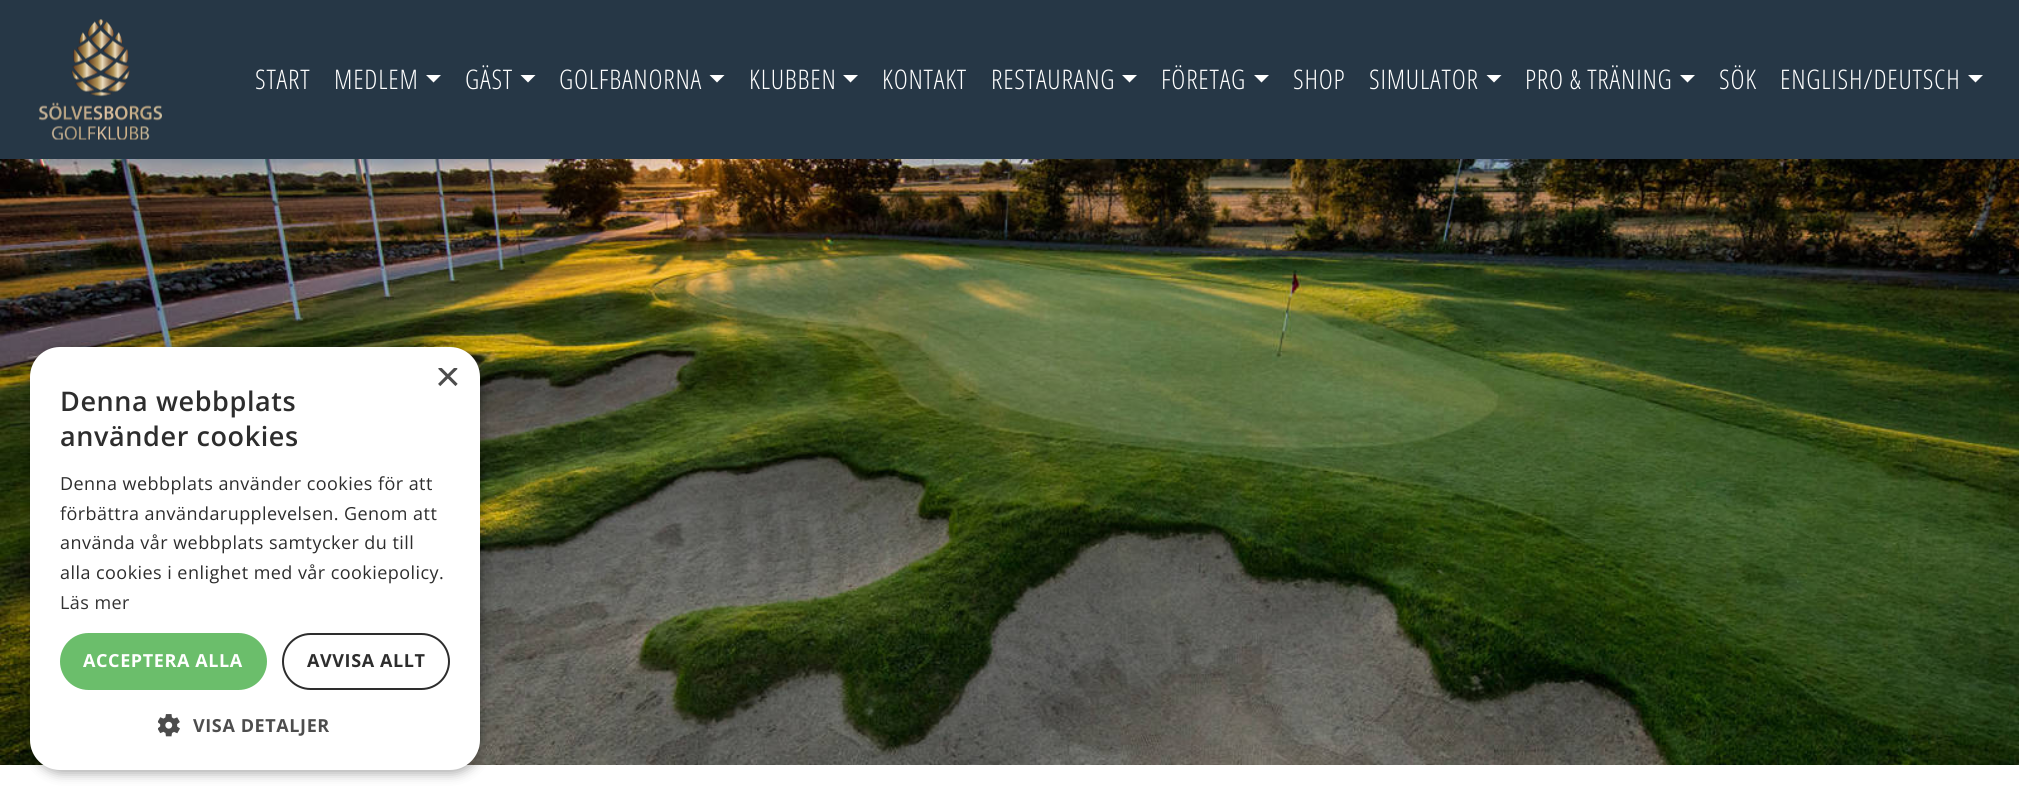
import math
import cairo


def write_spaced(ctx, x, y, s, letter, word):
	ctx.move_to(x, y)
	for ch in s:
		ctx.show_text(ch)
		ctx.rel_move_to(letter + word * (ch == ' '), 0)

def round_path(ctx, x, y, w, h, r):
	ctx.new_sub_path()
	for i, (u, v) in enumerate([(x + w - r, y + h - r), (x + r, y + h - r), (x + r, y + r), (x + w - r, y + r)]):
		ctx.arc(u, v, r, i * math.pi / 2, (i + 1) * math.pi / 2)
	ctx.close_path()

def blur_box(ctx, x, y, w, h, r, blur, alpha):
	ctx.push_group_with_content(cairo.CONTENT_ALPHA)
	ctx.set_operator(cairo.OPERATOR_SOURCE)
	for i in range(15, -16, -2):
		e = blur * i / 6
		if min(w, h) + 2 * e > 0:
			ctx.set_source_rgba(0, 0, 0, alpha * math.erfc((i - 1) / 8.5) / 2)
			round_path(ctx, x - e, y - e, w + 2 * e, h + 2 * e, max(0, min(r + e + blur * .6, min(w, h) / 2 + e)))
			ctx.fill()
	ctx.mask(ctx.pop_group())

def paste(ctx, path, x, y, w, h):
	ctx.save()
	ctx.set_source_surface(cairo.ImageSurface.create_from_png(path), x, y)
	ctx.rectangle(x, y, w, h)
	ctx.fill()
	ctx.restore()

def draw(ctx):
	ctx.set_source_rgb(1, 1, 1)
	ctx.paint()
	ctx.set_source_rgb(0.149, 0.216, 0.275)
	ctx.rectangle(0, 0, 2019, 159)
	ctx.fill()
	paste(ctx, 'media/1.png', 39, 19, 123, 121)
	ctx.select_font_face('Open Sans Condensed Light')
	ctx.set_font_size(27)
	ctx.set_source_rgb(1, 1, 1)
	write_spaced(ctx, 255, 89, 'START', 0.75, 0)
	write_spaced(ctx, 334, 89, 'MEDLEM', 0.75, 0)
	ctx.new_path()
	ctx.move_to(426, 75)
	ctx.line_to(441, 75)
	ctx.line_to(433.5, 82.5)
	ctx.close_path()
	ctx.fill()
	write_spaced(ctx, 465, 89, 'GÄST', 0.75, 0)
	ctx.new_path()
	ctx.move_to(520.5, 75)
	ctx.line_to(535.5, 75)
	ctx.line_to(528, 82.5)
	ctx.close_path()
	ctx.fill()
	write_spaced(ctx, 559, 89, 'GOLFBANORNA', 0.75, 0)
	ctx.new_path()
	ctx.move_to(709.5, 75)
	ctx.line_to(724.5, 75)
	ctx.line_to(717, 82.5)
	ctx.close_path()
	ctx.fill()
	write_spaced(ctx, 749, 89, 'KLUBBEN', 0.75, 0)
	ctx.new_path()
	ctx.move_to(843, 75)
	ctx.line_to(858, 75)
	ctx.line_to(850.5, 82.5)
	ctx.close_path()
	ctx.fill()
	write_spaced(ctx, 882, 89, 'KONTAKT', 0.75, 0)
	write_spaced(ctx, 991, 89, 'RESTAURANG', 0.75, 0)
	ctx.new_path()
	ctx.move_to(1122, 75)
	ctx.line_to(1137, 75)
	ctx.line_to(1129.5, 82.5)
	ctx.close_path()
	ctx.fill()
	write_spaced(ctx, 1161, 89, 'FÖRETAG', 0.75, 0)
	ctx.new_path()
	ctx.move_to(1254, 75)
	ctx.line_to(1269, 75)
	ctx.line_to(1261.5, 82.5)
	ctx.close_path()
	ctx.fill()
	write_spaced(ctx, 1293, 89, 'SHOP', 0.75, 0)
	write_spaced(ctx, 1369, 89, 'SIMULATOR', 0.75, 0)
	ctx.new_path()
	ctx.move_to(1486.5, 75)
	ctx.line_to(1501.5, 75)
	ctx.line_to(1494, 82.5)
	ctx.close_path()
	ctx.fill()
	write_spaced(ctx, 1525, 89, 'PRO & TRÄNING', 0.75, 0)
	ctx.new_path()
	ctx.move_to(1680, 75)
	ctx.line_to(1695, 75)
	ctx.line_to(1687.5, 82.5)
	ctx.close_path()
	ctx.fill()
	write_spaced(ctx, 1719, 89, 'SÖK', 0.75, 0)
	write_spaced(ctx, 1780, 89, 'ENGLISH/DEUTSCH', 0.75, 0)
	ctx.new_path()
	ctx.move_to(1968, 75)
	ctx.line_to(1983, 75)
	ctx.line_to(1975.5, 82.5)
	ctx.close_path()
	ctx.fill()
	paste(ctx, 'media/2.png', 0, 159, 2019, 606)
	ctx.set_source_rgb(0, 0, 0)
	blur_box(ctx, 32, 350, 450, 423, 30, 6, 0.35)
	ctx.set_source_rgb(1, 1, 1)
	round_path(ctx, 30, 347, 450, 423, 30)
	ctx.fill()
	ctx.save()
	ctx.rectangle(435, 368, 23, 22)
	ctx.clip()
	ctx.select_font_face('Liberation Sans')
	ctx.set_font_size(44)
	ctx.set_source_rgb(0.302, 0.302, 0.302)
	ctx.move_to(435, 391)
	ctx.show_text('×')
	ctx.restore()
	ctx.select_font_face('Open Sans SemiBold')
	ctx.set_source_rgb(0.176, 0.176, 0.176)
	write_spaced(ctx, 60, 411, 'Denna webbplats', 0.6, 0)
	write_spaced(ctx, 60, 446, 'använder cookies', 0.6, 0)
	ctx.select_font_face('Open Sans')
	ctx.set_font_size(18)
	for x, y, s in [
		(60, 490, 'Denna webbplats använder cookies för att'),
		(60, 520, 'förbättra användarupplevelsen. Genom att'),
		(60, 549, 'använda vår webbplats samtycker du till'),
		(60, 579, 'alla cookies i enlighet med vår cookiepolicy.'),
	]:
		write_spaced(ctx, x, y, s, 0.45, 0)
	ctx.set_source_rgb(0.2, 0.2, 0.2)
	write_spaced(ctx, 60, 609, 'Läs mer', 0.45, 0)
	ctx.set_source_rgb(0.42, 0.745, 0.42)
	round_path(ctx, 60, 633, 207, 57, 28.5)
	ctx.fill()
	ctx.select_font_face('Open Sans', cairo.FONT_SLANT_NORMAL, cairo.FONT_WEIGHT_BOLD)
	ctx.set_source_rgb(1, 1, 1)
	write_spaced(ctx, 83, 667, 'ACCEPTERA ALLA', 0.6, 0)
	round_path(ctx, 283, 634, 166, 55, 27.5)
	ctx.set_source_rgb(0.176, 0.176, 0.176)
	ctx.stroke()
	write_spaced(ctx, 307, 667, 'AVVISA ALLT', 0.6, 0)
	paste(ctx, 'media/3.png', 158, 714, 22, 23)
	ctx.set_source_rgb(0.302, 0.302, 0.302)
	write_spaced(ctx, 193, 732, 'VISA DETALJER', 0.6, 0)


surface = cairo.ImageSurface(cairo.FORMAT_RGB24, 2019, 799)
ctx = cairo.Context(surface)
options = cairo.FontOptions()
options.set_hint_metrics(cairo.HINT_METRICS_OFF)
options.set_hint_style(cairo.HINT_STYLE_NONE)
ctx.set_font_options(options)
ctx.set_miter_limit(4)
draw(ctx)
surface.write_to_png('image.png')
